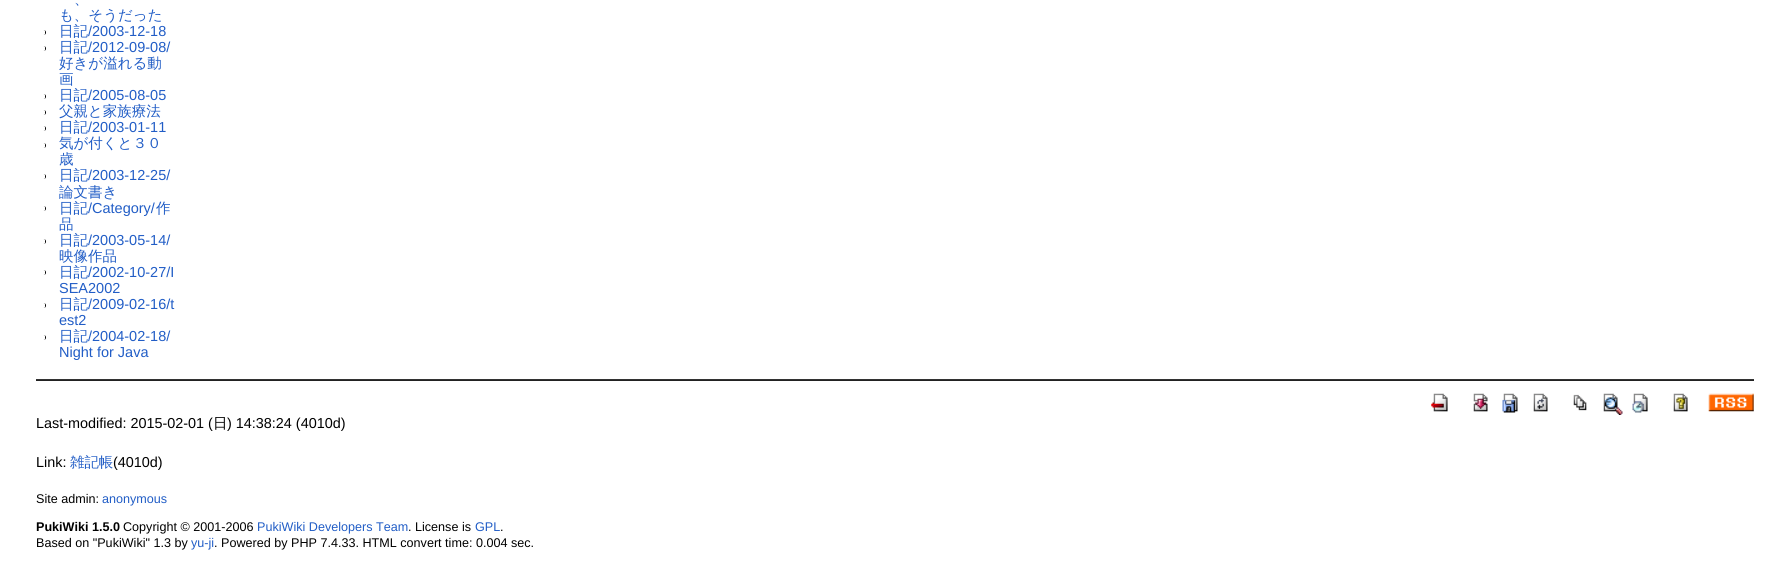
import math
import cairo


def paste(ctx, path, x, y, w, h):
	ctx.save()
	ctx.set_source_surface(cairo.ImageSurface.create_from_png(path), x, y)
	ctx.rectangle(x, y, w, h)
	ctx.fill()
	ctx.restore()

def draw(ctx):
	ctx.set_source_rgb(1, 1, 1)
	ctx.paint()
	ctx.select_font_face('WenQuanYi Zen Hei Medium')
	ctx.set_font_size(14.5)
	ctx.set_source_rgb(0.129, 0.365, 0.776)
	ctx.move_to(74, 4)
	ctx.show_text('、')
	ctx.move_to(59, 20)
	ctx.show_text('も、そうだった')
	ctx.set_source_rgb(0, 0, 0)
	ctx.new_path()
	ctx.move_to(45, 30)
	ctx.line_to(43.5, 30)
	ctx.curve_to(45, 30, 46, 31, 46, 32.5)
	ctx.curve_to(46, 34, 45, 35, 43.5, 35)
	ctx.line_to(45, 35)
	ctx.close_path()
	ctx.fill()
	ctx.set_source_rgb(0.129, 0.365, 0.776)
	ctx.move_to(59, 36)
	ctx.show_text('日記')
	ctx.select_font_face('Liberation Sans')
	ctx.move_to(88, 36)
	ctx.show_text('/2003-12-18')
	ctx.set_source_rgb(0, 0, 0)
	ctx.new_path()
	ctx.move_to(45, 46)
	ctx.line_to(43.5, 46)
	ctx.curve_to(45, 46, 46, 47, 46, 48.5)
	ctx.curve_to(46, 50, 45, 51, 43.5, 51)
	ctx.line_to(45, 51)
	ctx.close_path()
	ctx.fill()
	ctx.select_font_face('WenQuanYi Zen Hei Medium')
	ctx.set_source_rgb(0.129, 0.365, 0.776)
	ctx.move_to(59, 52)
	ctx.show_text('日記')
	ctx.select_font_face('Liberation Sans')
	ctx.move_to(88, 52)
	ctx.show_text('/2012-09-08/')
	ctx.select_font_face('WenQuanYi Zen Hei Medium')
	ctx.move_to(59, 68)
	ctx.show_text('好きが溢れる動')
	ctx.move_to(59, 84)
	ctx.show_text('画')
	ctx.set_source_rgb(0, 0, 0)
	ctx.new_path()
	ctx.move_to(45, 94)
	ctx.line_to(43.5, 94)
	ctx.curve_to(45, 94, 46, 95, 46, 96.5)
	ctx.curve_to(46, 98, 45, 99, 43.5, 99)
	ctx.line_to(45, 99)
	ctx.close_path()
	ctx.fill()
	ctx.set_source_rgb(0.129, 0.365, 0.776)
	ctx.move_to(59, 100)
	ctx.show_text('日記')
	ctx.select_font_face('Liberation Sans')
	ctx.move_to(88, 100)
	ctx.show_text('/2005-08-05')
	ctx.set_source_rgb(0, 0, 0)
	ctx.new_path()
	ctx.move_to(45, 110)
	ctx.line_to(43.5, 110)
	ctx.curve_to(45, 110, 46, 111, 46, 112.5)
	ctx.curve_to(46, 114, 45, 115, 43.5, 115)
	ctx.line_to(45, 115)
	ctx.close_path()
	ctx.fill()
	ctx.select_font_face('WenQuanYi Zen Hei Medium')
	ctx.set_source_rgb(0.129, 0.365, 0.776)
	ctx.move_to(59, 116)
	ctx.show_text('父親と家族療法')
	ctx.set_source_rgb(0, 0, 0)
	ctx.new_path()
	ctx.move_to(45, 126)
	ctx.line_to(43.5, 126)
	ctx.curve_to(45, 126, 46, 127, 46, 128.5)
	ctx.curve_to(46, 130, 45, 131, 43.5, 131)
	ctx.line_to(45, 131)
	ctx.close_path()
	ctx.fill()
	ctx.set_source_rgb(0.129, 0.365, 0.776)
	ctx.move_to(59, 132)
	ctx.show_text('日記')
	ctx.select_font_face('Liberation Sans')
	ctx.move_to(88, 132)
	ctx.show_text('/2003-01-11')
	ctx.set_source_rgb(0, 0, 0)
	ctx.new_path()
	ctx.move_to(45, 143)
	ctx.line_to(43.5, 143)
	ctx.curve_to(45, 143, 46, 144, 46, 145.5)
	ctx.curve_to(46, 147, 45, 148, 43.5, 148)
	ctx.line_to(45, 148)
	ctx.close_path()
	ctx.fill()
	ctx.select_font_face('WenQuanYi Zen Hei Medium')
	ctx.set_source_rgb(0.129, 0.365, 0.776)
	ctx.move_to(59, 148)
	ctx.show_text('気が付くと３０')
	ctx.move_to(59, 164)
	ctx.show_text('歳')
	ctx.set_source_rgb(0, 0, 0)
	ctx.new_path()
	ctx.move_to(45, 174)
	ctx.line_to(43.5, 174)
	ctx.curve_to(45, 174, 46, 175, 46, 176.5)
	ctx.curve_to(46, 178, 45, 179, 43.5, 179)
	ctx.line_to(45, 179)
	ctx.close_path()
	ctx.fill()
	ctx.set_source_rgb(0.129, 0.365, 0.776)
	ctx.move_to(59, 180)
	ctx.show_text('日記')
	ctx.select_font_face('Liberation Sans')
	ctx.move_to(88, 180)
	ctx.show_text('/2003-12-25/')
	ctx.select_font_face('WenQuanYi Zen Hei Medium')
	ctx.move_to(59, 197)
	ctx.show_text('論文書き')
	ctx.set_source_rgb(0, 0, 0)
	ctx.new_path()
	ctx.move_to(45, 206)
	ctx.line_to(43.5, 206)
	ctx.curve_to(45, 206, 46, 207, 46, 208.5)
	ctx.curve_to(46, 210, 45, 211, 43.5, 211)
	ctx.line_to(45, 211)
	ctx.close_path()
	ctx.fill()
	ctx.set_source_rgb(0.129, 0.365, 0.776)
	ctx.move_to(59, 213)
	ctx.show_text('日記')
	ctx.select_font_face('Liberation Sans')
	ctx.move_to(88, 213)
	ctx.show_text('/Category/')
	ctx.select_font_face('WenQuanYi Zen Hei Medium')
	ctx.move_to(156, 213)
	ctx.show_text('作')
	ctx.move_to(59, 229)
	ctx.show_text('品')
	ctx.set_source_rgb(0, 0, 0)
	ctx.new_path()
	ctx.move_to(45, 239)
	ctx.line_to(43.5, 239)
	ctx.curve_to(45, 239, 46, 240, 46, 241.5)
	ctx.curve_to(46, 243, 45, 244, 43.5, 244)
	ctx.line_to(45, 244)
	ctx.close_path()
	ctx.fill()
	ctx.set_source_rgb(0.129, 0.365, 0.776)
	ctx.move_to(59, 245)
	ctx.show_text('日記')
	ctx.select_font_face('Liberation Sans')
	ctx.move_to(88, 245)
	ctx.show_text('/2003-05-14/')
	ctx.select_font_face('WenQuanYi Zen Hei Medium')
	ctx.move_to(59, 261)
	ctx.show_text('映像作品')
	ctx.set_source_rgb(0, 0, 0)
	ctx.new_path()
	ctx.move_to(45, 270)
	ctx.line_to(43.5, 270)
	ctx.curve_to(45, 270, 46, 271, 46, 272.5)
	ctx.curve_to(46, 274, 45, 275, 43.5, 275)
	ctx.line_to(45, 275)
	ctx.close_path()
	ctx.fill()
	ctx.set_source_rgb(0.129, 0.365, 0.776)
	ctx.move_to(59, 277)
	ctx.show_text('日記')
	ctx.select_font_face('Liberation Sans')
	ctx.move_to(88, 277)
	ctx.show_text('/2002-10-27/I')
	ctx.move_to(59, 293)
	ctx.show_text('SEA2002')
	ctx.set_source_rgb(0, 0, 0)
	ctx.new_path()
	ctx.move_to(45, 303)
	ctx.line_to(43.5, 303)
	ctx.curve_to(45, 303, 46, 304, 46, 305.5)
	ctx.curve_to(46, 307, 45, 308, 43.5, 308)
	ctx.line_to(45, 308)
	ctx.close_path()
	ctx.fill()
	ctx.select_font_face('WenQuanYi Zen Hei Medium')
	ctx.set_source_rgb(0.129, 0.365, 0.776)
	ctx.move_to(59, 309)
	ctx.show_text('日記')
	ctx.select_font_face('Liberation Sans')
	ctx.move_to(88, 309)
	ctx.show_text('/2009-02-16/t')
	ctx.move_to(59, 325)
	ctx.show_text('est2')
	ctx.set_source_rgb(0, 0, 0)
	ctx.new_path()
	ctx.move_to(45, 335)
	ctx.line_to(43.5, 335)
	ctx.curve_to(45, 335, 46, 336, 46, 337.5)
	ctx.curve_to(46, 339, 45, 340, 43.5, 340)
	ctx.line_to(45, 340)
	ctx.close_path()
	ctx.fill()
	ctx.select_font_face('WenQuanYi Zen Hei Medium')
	ctx.set_source_rgb(0.129, 0.365, 0.776)
	ctx.move_to(59, 341)
	ctx.show_text('日記')
	ctx.select_font_face('Liberation Sans')
	ctx.move_to(88, 341)
	ctx.show_text('/2004-02-18/')
	ctx.move_to(59, 357)
	ctx.show_text('Night for Java')
	ctx.set_source_rgb(0.2, 0.2, 0.2)
	ctx.rectangle(36, 379, 1718, 1)
	ctx.fill()
	ctx.set_source_rgb(0.133, 0.133, 0.133)
	ctx.rectangle(36, 380, 1718, 1)
	ctx.fill()
	paste(ctx, 'media/1.png', 1431, 393, 17, 19)
	paste(ctx, 'media/2.png', 1473, 393, 15, 19)
	paste(ctx, 'media/3.png', 1502, 393, 16, 20)
	paste(ctx, 'media/4.png', 1533, 393, 15, 19)
	paste(ctx, 'media/5.png', 1573, 394, 14, 17)
	paste(ctx, 'media/6.png', 1603, 393, 20, 22)
	paste(ctx, 'media/7.png', 1632, 393, 16, 20)
	paste(ctx, 'media/8.png', 1673, 393, 15, 19)
	paste(ctx, 'media/9.png', 1708, 393, 46, 19)
	ctx.set_font_size(14.4)
	ctx.set_source_rgb(0, 0, 0)
	ctx.move_to(36, 428)
	ctx.show_text('Last-modified: 2015-02-01 (')
	ctx.select_font_face('WenQuanYi Zen Hei Medium')
	ctx.move_to(213, 428)
	ctx.show_text('日')
	ctx.select_font_face('Liberation Sans')
	ctx.move_to(227, 428)
	ctx.show_text(') 14:38:24 (4010d)')
	ctx.move_to(36, 467)
	ctx.show_text('Link:')
	ctx.select_font_face('WenQuanYi Zen Hei Medium')
	ctx.set_source_rgb(0.129, 0.365, 0.776)
	ctx.move_to(70, 467)
	ctx.show_text('雑記帳')
	ctx.select_font_face('Liberation Sans')
	ctx.set_source_rgb(0, 0, 0)
	ctx.move_to(113, 467)
	ctx.show_text('(4010d)')
	ctx.set_font_size(12.6)
	ctx.move_to(36, 503)
	ctx.show_text('Site admin:')
	ctx.set_source_rgb(0.129, 0.365, 0.776)
	ctx.move_to(102, 503)
	ctx.show_text('anonymous')
	ctx.select_font_face('Liberation Sans', cairo.FONT_SLANT_NORMAL, cairo.FONT_WEIGHT_BOLD)
	ctx.set_source_rgb(0, 0, 0)
	ctx.move_to(36, 531)
	ctx.show_text('PukiWiki 1.5.0')
	ctx.select_font_face('Liberation Sans')
	ctx.move_to(123, 531)
	ctx.show_text('Copyright © 2001-2006')
	ctx.set_source_rgb(0.129, 0.365, 0.776)
	ctx.move_to(257, 531)
	ctx.show_text('PukiWiki Developers Team')
	ctx.set_source_rgb(0, 0, 0)
	ctx.move_to(408, 531)
	ctx.show_text('. License is')
	ctx.set_source_rgb(0.129, 0.365, 0.776)
	ctx.move_to(475, 531)
	ctx.show_text('GPL')
	ctx.set_source_rgb(0, 0, 0)
	ctx.move_to(500, 531)
	ctx.show_text('.')
	ctx.move_to(36, 547)
	ctx.show_text('Based on "PukiWiki" 1.3 by')
	ctx.set_source_rgb(0.129, 0.365, 0.776)
	ctx.move_to(191, 547)
	ctx.show_text('yu-ji')
	ctx.set_source_rgb(0, 0, 0)
	ctx.move_to(214, 547)
	ctx.show_text('. Powered by PHP 7.4.33. HTML convert time: 0.004 sec.')


surface = cairo.ImageSurface(cairo.FORMAT_RGB24, 1789, 563)
ctx = cairo.Context(surface)
options = cairo.FontOptions()
options.set_hint_metrics(cairo.HINT_METRICS_OFF)
options.set_hint_style(cairo.HINT_STYLE_NONE)
ctx.set_font_options(options)
ctx.set_miter_limit(4)
draw(ctx)
surface.write_to_png('image.png')
